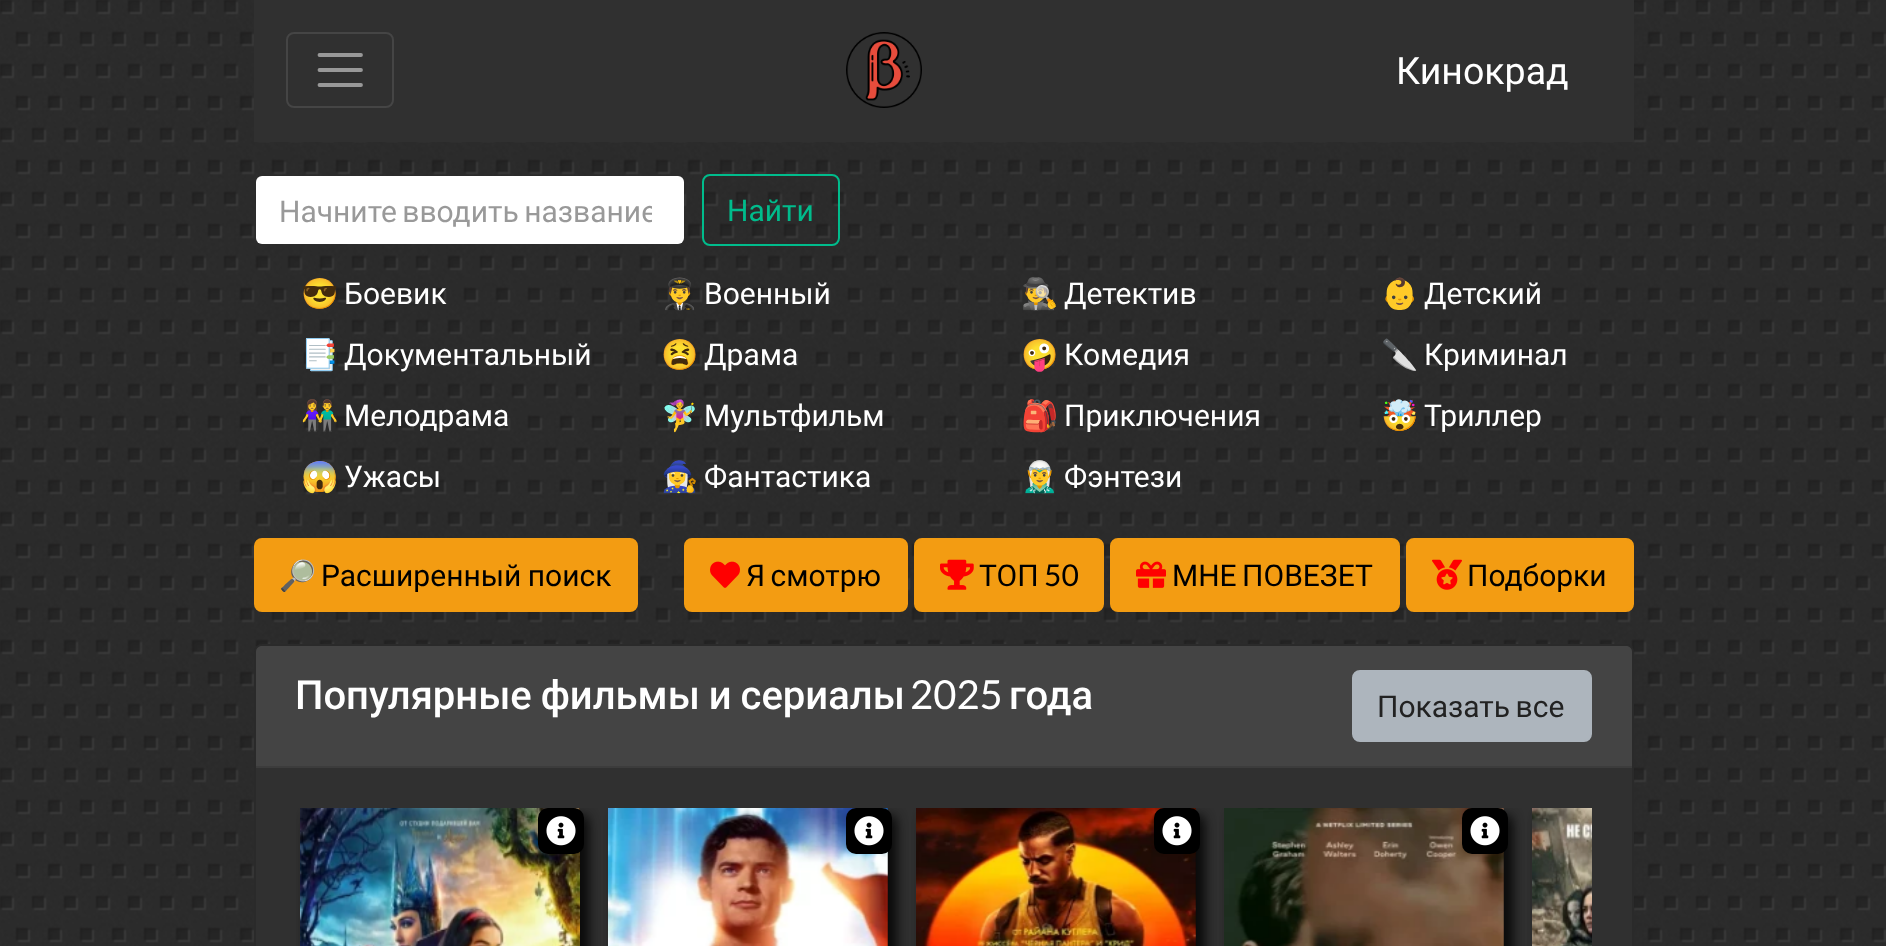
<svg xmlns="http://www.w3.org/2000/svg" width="1886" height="946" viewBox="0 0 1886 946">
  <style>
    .t1 { font: 37.5px Roboto; fill: #fff; }
    .t2 { font: 30px Roboto; fill: #999; }
    .t3 { font: 30px Roboto; fill: #00bc8c; }
    .t4 { font: 30px Noto Color Emoji; fill: #fff; }
    .t5 { font: 30px Roboto; fill: #fff; }
    .t6 { font: 30px Noto Color Emoji; fill: #000; }
    .t7 { font: 30px Roboto; fill: #000; }
    .t8 { font: 30px Lato; fill: #000; }
    .t9 { font: 500 40px Roboto; fill: #fff; }
    .t10 { font: 40px Lato; fill: #fff; }
    .t11 { font: 30px Roboto; fill: #222; }
  </style>
  <defs>
    <clipPath id="clip1"><rect x="280" y="192" width="372" height="38"/></clipPath>
    <clipPath id="clip2"><rect x="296" y="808" width="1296" height="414"/></clipPath>
  </defs>
  <rect width="100%" height="100%" fill="#fff"/>
  <image x="0" y="0" width="1886" height="946" href="images/1.png"/>
  <rect x="254" y="0" width="1380" height="142" fill="#303030"/>
  <rect x="287" y="33" width="106" height="74" rx="7" fill="none" stroke="#454545" stroke-width="2"/>
  <path d="M319.5 55H361M319.5 70H361M319.5 85H361" fill="none" stroke="#989898" stroke-width="3.8" stroke-linecap="round"/>
  <image x="846" y="32" width="76" height="76" href="images/2.png"/>
  <text x="1396" y="84" class="t1">Кинокрад</text>
  <rect x="256" y="176" width="428" height="68" rx="6" fill="#fff"/>
  <g clip-path="url(#clip1)">
    <text x="279" y="222" word-spacing="-2" class="t2">Начните вводить название</text>
  </g>
  <rect x="703" y="175" width="136" height="70" rx="7" fill="none" stroke="#00bc8c" stroke-width="2"/>
  <text x="727" y="221" class="t3">Найти</text>
  <text x="301" y="304" class="t4">😎</text>
  <text x="344" y="304" class="t5">Боевик</text>
  <text x="661" y="304" class="t4">👨‍✈️</text>
  <text x="704" y="304" class="t5">Военный</text>
  <text x="1021" y="304" class="t4">🕵️‍♂️</text>
  <text x="1064" y="304" class="t5">Детектив</text>
  <text x="1381" y="304" class="t4">👶</text>
  <text x="1424" y="304" class="t5">Детский</text>
  <text x="301" y="365" class="t4">📑</text>
  <text x="344" y="365" class="t5">Документальный</text>
  <text x="661" y="365" class="t4">😫</text>
  <text x="704" y="365" class="t5">Драма</text>
  <text x="1021" y="365" class="t4">🤪</text>
  <text x="1064" y="365" class="t5">Комедия</text>
  <text x="1381" y="365" class="t4">🔪</text>
  <text x="1424" y="365" class="t5">Криминал</text>
  <text x="301" y="426" class="t4">👫</text>
  <text x="344" y="426" class="t5">Мелодрама</text>
  <text x="661" y="426" class="t4">🧚‍♀️</text>
  <text x="704" y="426" class="t5">Мультфильм</text>
  <text x="1021" y="426" class="t4">🎒</text>
  <text x="1064" y="426" class="t5">Приключения</text>
  <text x="1381" y="426" class="t4">🤯</text>
  <text x="1424" y="426" class="t5">Триллер</text>
  <text x="301" y="487" class="t4">😱</text>
  <text x="344" y="487" class="t5">Ужасы</text>
  <text x="661" y="487" class="t4">🧙‍♀️</text>
  <text x="704" y="487" class="t5">Фантастика</text>
  <text x="1021" y="487" class="t4">🧝‍♂️</text>
  <text x="1064" y="487" class="t5">Фэнтези</text>
  <rect x="255" y="539" width="382" height="72" rx="7" fill="#f39c12" stroke="#f39c12" stroke-width="2"/>
  <text x="279" y="586" class="t6">🔎</text>
  <text x="321" y="586" word-spacing="-1" class="t7">Расширенный поиск</text>
  <rect x="685" y="539" width="222" height="72" rx="7" fill="#f39c12" stroke="#f39c12" stroke-width="2"/>
  <image x="710" y="561" width="30" height="27" href="images/3.png"/>
  <text x="746" y="586" word-spacing="-2" class="t7">Я смотрю</text>
  <rect x="915" y="539" width="188" height="72" rx="7" fill="#f39c12" stroke="#f39c12" stroke-width="2"/>
  <image x="940" y="559" width="34" height="31" href="images/4.png"/>
  <text x="979" y="586" class="t7">ТОП</text>
  <text x="1044" y="586" class="t8">50</text>
  <rect x="1111" y="539" width="288" height="72" rx="7" fill="#f39c12" stroke="#f39c12" stroke-width="2"/>
  <image x="1136" y="561" width="30" height="27" href="images/5.png"/>
  <text x="1172" y="586" word-spacing="-2" class="t7">МНЕ ПОВЕЗЕТ</text>
  <rect x="1407" y="539" width="226" height="72" rx="7" fill="#f39c12" stroke="#f39c12" stroke-width="2"/>
  <image x="1432" y="559" width="30" height="31" href="images/6.png"/>
  <text x="1467" y="586" class="t7">Подборки</text>
  <rect x="254" y="644" width="1380" height="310" rx="8" fill="#303030"/>
  <rect x="255" y="645" width="1378" height="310" rx="7" fill="none" stroke="#0000001f" stroke-width="2"/>
  <path d="M262 646H1626C1629.5 646 1632 648.5 1632 652V768H256V652C256 648.5 258.5 646 262 646Z" fill="#444"/>
  <rect x="256" y="766" width="1376" height="2" fill="#3c3c3c"/>
  <text x="295" y="709" word-spacing="-1" class="t9">Популярные фильмы и сериалы</text>
  <text x="910" y="709" class="t10">2025</text>
  <text x="1009" y="709" class="t9">года</text>
  <rect x="1353" y="671" width="238" height="70" rx="7" fill="#adb5bd" stroke="#adb5bd" stroke-width="2"/>
  <text x="1377" y="717" word-spacing="-2" class="t11">Показать все</text>
  <g clip-path="url(#clip2)">
    <rect x="308" y="816" width="280" height="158" rx="10" fill="#0000008a" filter="blur(6px)"/>
    <rect x="308" y="816" width="280" height="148" fill="#0000008a" filter="blur(6px)"/>
  </g>
  <image x="300" y="808" width="280" height="138" href="images/7.png"/>
  <rect x="538" y="808" width="46" height="46" rx="10" fill="#000"/>
  <image x="546" y="816" width="30" height="30" href="images/8.png"/>
  <g clip-path="url(#clip2)">
    <rect x="616" y="816" width="280" height="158" rx="10" fill="#0000008a" filter="blur(6px)"/>
    <rect x="616" y="816" width="280" height="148" fill="#0000008a" filter="blur(6px)"/>
  </g>
  <image x="608" y="808" width="280" height="138" href="images/9.png"/>
  <rect x="846" y="808" width="46" height="46" rx="10" fill="#000"/>
  <image x="854" y="816" width="30" height="30" href="images/8.png"/>
  <g clip-path="url(#clip2)">
    <rect x="924" y="816" width="280" height="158" rx="10" fill="#0000008a" filter="blur(6px)"/>
    <rect x="924" y="816" width="280" height="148" fill="#0000008a" filter="blur(6px)"/>
  </g>
  <image x="916" y="808" width="280" height="138" href="images/10.png"/>
  <rect x="1154" y="808" width="46" height="46" rx="10" fill="#000"/>
  <image x="1162" y="816" width="30" height="30" href="images/8.png"/>
  <g clip-path="url(#clip2)">
    <rect x="1232" y="816" width="280" height="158" rx="10" fill="#0000008a" filter="blur(6px)"/>
    <rect x="1232" y="816" width="280" height="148" fill="#0000008a" filter="blur(6px)"/>
  </g>
  <image x="1224" y="808" width="280" height="138" href="images/11.png"/>
  <rect x="1462" y="808" width="46" height="46" rx="10" fill="#000"/>
  <image x="1470" y="816" width="30" height="30" href="images/8.png"/>
  <g clip-path="url(#clip2)">
    <rect x="1540" y="816" width="280" height="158" rx="10" fill="#0000008a" filter="blur(6px)"/>
    <rect x="1540" y="816" width="280" height="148" fill="#0000008a" filter="blur(6px)"/>
  </g>
  <image x="1532" y="808" width="60" height="138" href="images/12.png"/>
</svg>
